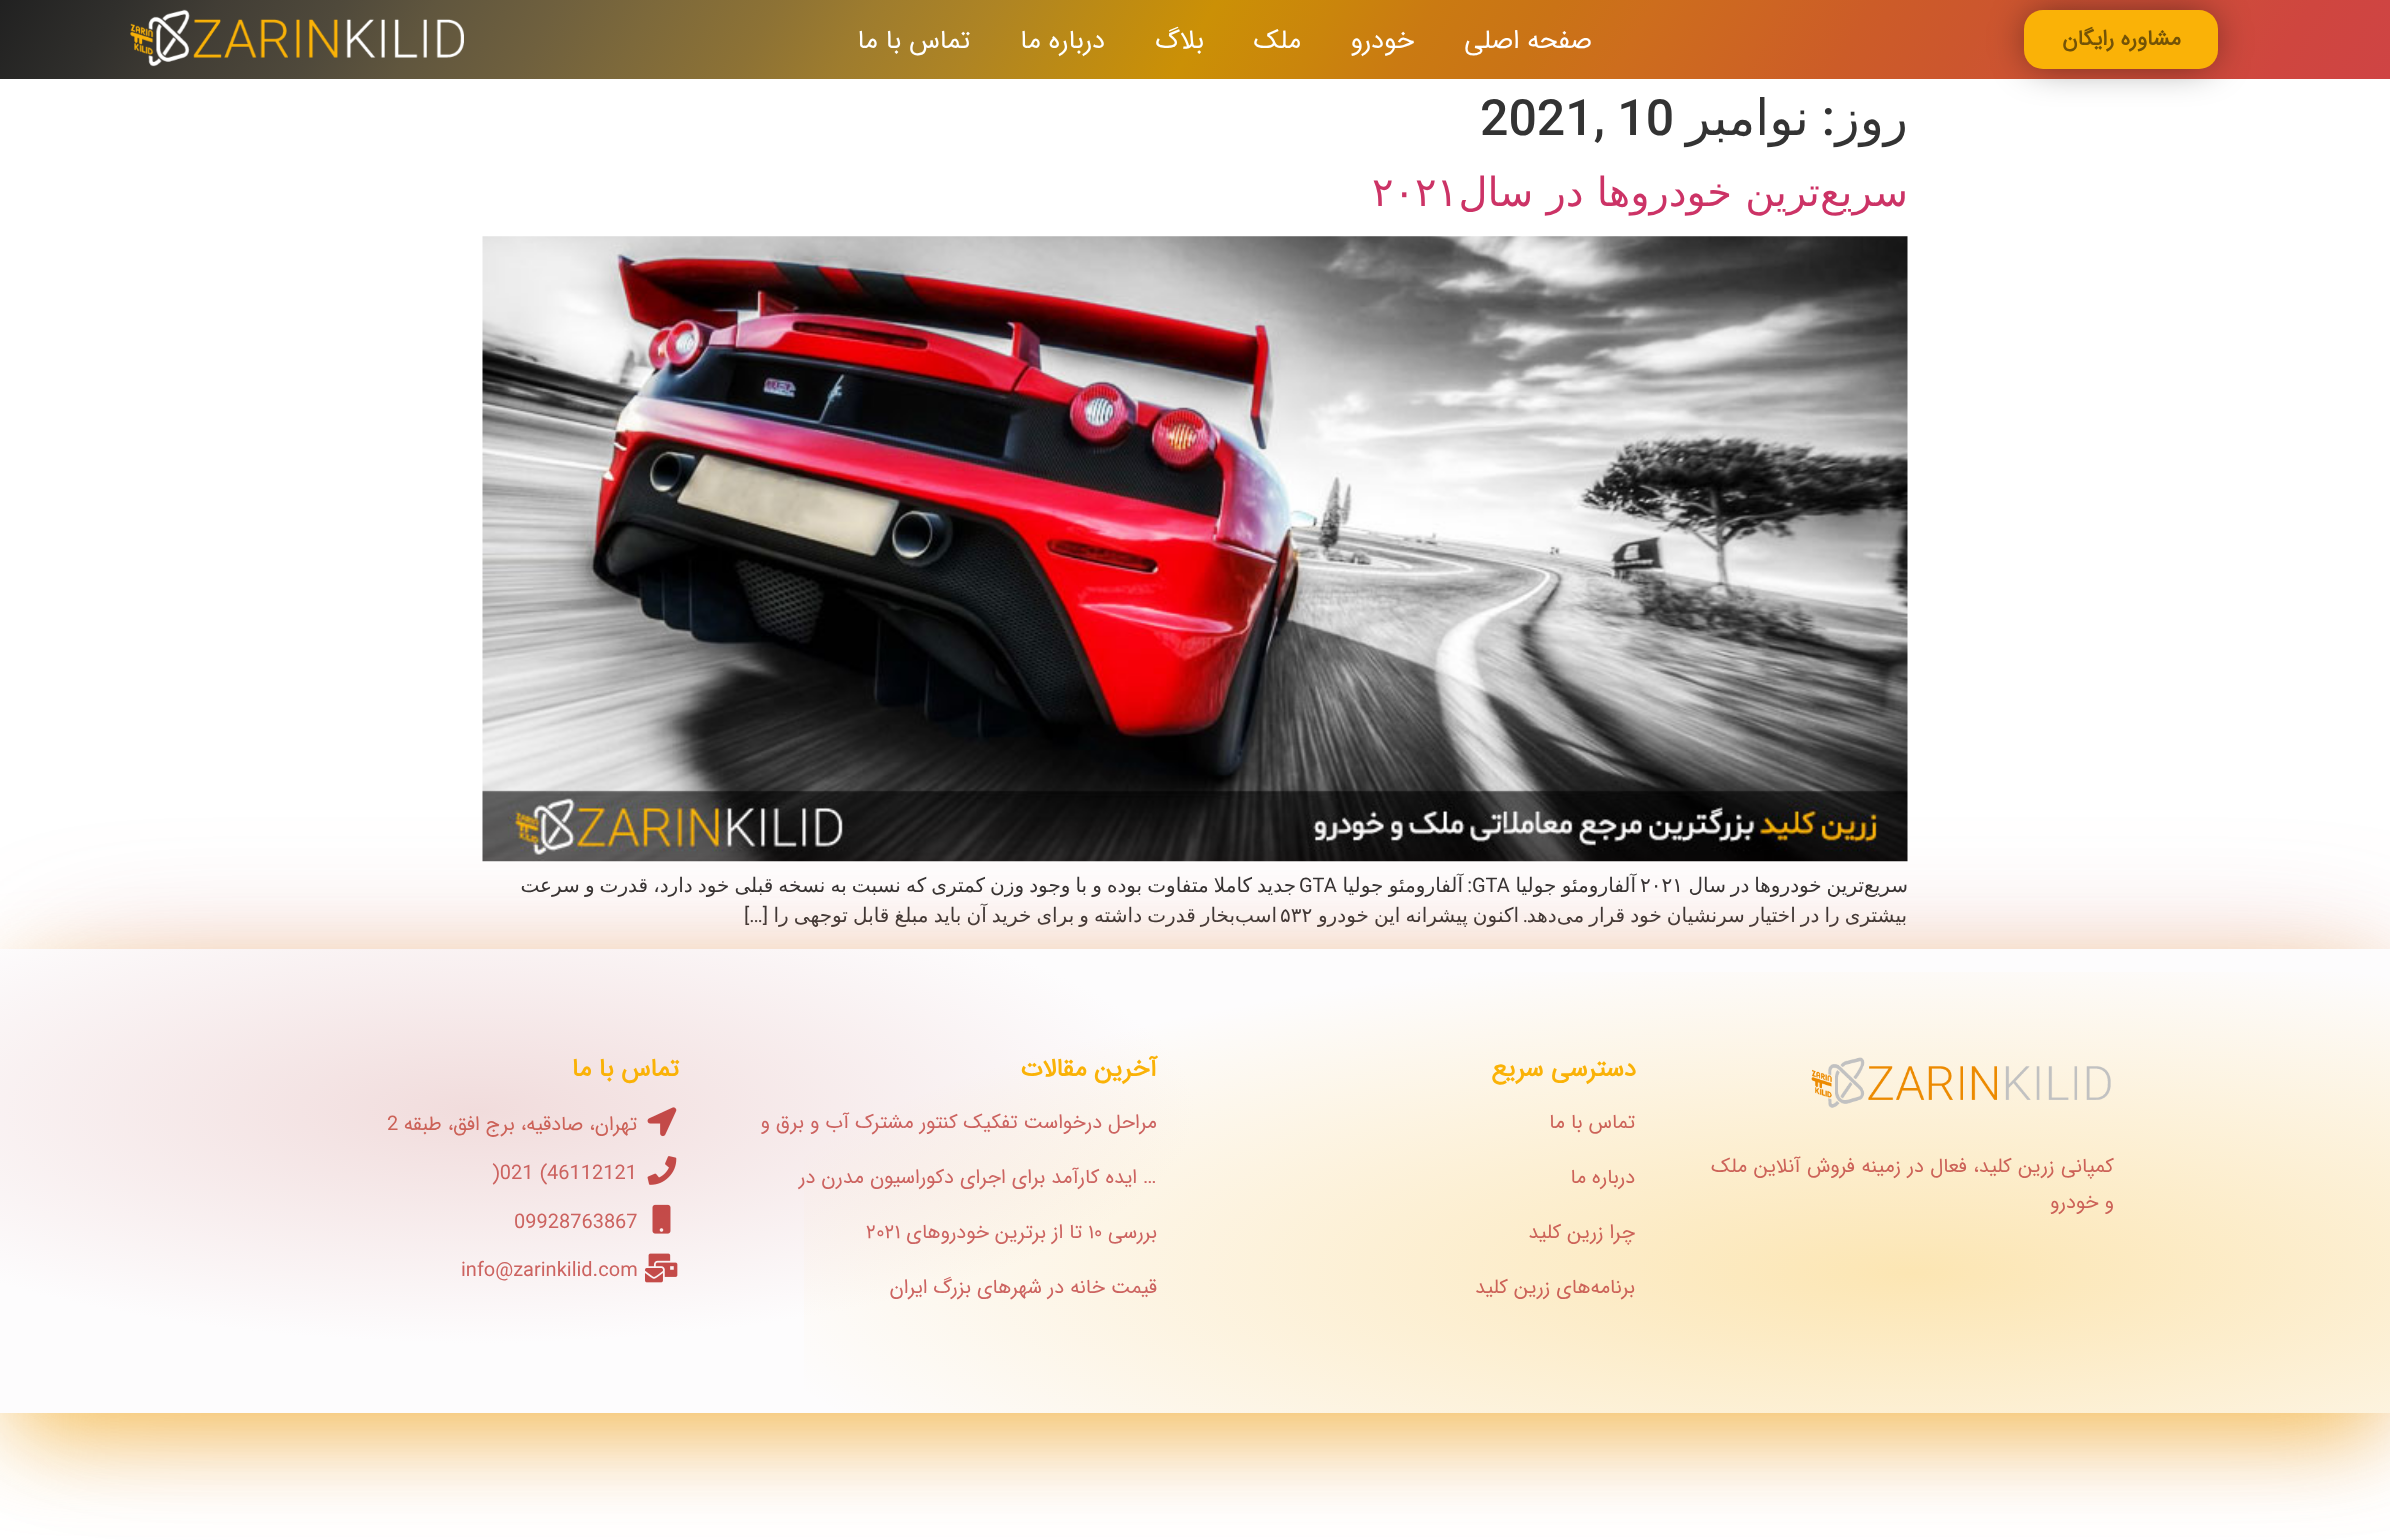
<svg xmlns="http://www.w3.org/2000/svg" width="2390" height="1540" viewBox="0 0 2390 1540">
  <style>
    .t1 { font: bold 21.5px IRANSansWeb; direction: rtl; fill: #735307; }
    .t2 { font: 26.25px IRANSansWeb; direction: rtl; fill: #fff; }
    .t3 { font: 50px DejaVu Sans; direction: rtl; fill: #333; }
    .t4 { font: 500 50px Roboto; direction: rtl; fill: #333; }
    .t5 { font: 500 50px Roboto; fill: #333; }
    .t6 { font: 40px DejaVu Sans; direction: rtl; fill: #c36; }
    .t7 { font: 40px DejaVu Sans; fill: #c36; }
    .t8 { font: 20px DejaVu Sans; direction: rtl; fill: #333; }
    .t9 { font: 20px DejaVu Sans; fill: #333; }
    .t10 { font: 20px Roboto; fill: #333; }
    .t11 { font: 20px Roboto; direction: rtl; fill: #333; }
    .t12 { font: 20px IRANSansWeb; direction: rtl; fill: #cc6258; }
    .t13 { font: bold 25px IRANSansWeb; direction: rtl; fill: #fab207; }
    .t14 { font: 20px IRANSansWeb; direction: rtl; fill: #cc6360; }
    .t15 { font: 20px IRANSansWeb; fill: #cc6360; }
    .t16 { font: 20px IRANSansWeb; fill: #cc6258; }
  </style>
  <defs>
    <linearGradient id="g1" gradientUnits="userSpaceOnUse" x1="282" y1="-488" x2="2108" y2="567"><stop offset="0" stop-color="#212121"/><stop offset="0.05" stop-color="#302f2c"/><stop offset="0.09" stop-color="#413d35"/><stop offset="0.14" stop-color="#4f493b"/><stop offset="0.18" stop-color="#60563e"/><stop offset="0.23" stop-color="#6f603e"/><stop offset="0.27" stop-color="#7d693b"/><stop offset="0.32" stop-color="#8d7235"/><stop offset="0.36" stop-color="#9e7c2e"/><stop offset="0.41" stop-color="#ae8424"/><stop offset="0.45" stop-color="#bb8a16"/><stop offset="0.5" stop-color="#cb9006"/><stop offset="0.55" stop-color="#ca850c"/><stop offset="0.59" stop-color="#ca7a12"/><stop offset="0.64" stop-color="#ca7316"/><stop offset="0.68" stop-color="#cd6d1d"/><stop offset="0.73" stop-color="#cd6423"/><stop offset="0.77" stop-color="#cc5c28"/><stop offset="0.82" stop-color="#cc562e"/><stop offset="0.86" stop-color="#ce5236"/><stop offset="0.91" stop-color="#ce4c3b"/><stop offset="0.95" stop-color="#cf463f"/><stop offset="1" stop-color="#cf4444"/></linearGradient>
    <radialGradient id="g2" gradientUnits="userSpaceOnUse" cx="0" cy="0" r="1" gradientTransform="matrix(717 0 0 232 478 1111)"><stop offset="0" stop-color="#f1dcdc"/><stop offset="1" stop-color="#fdfcfd"/></radialGradient>
    <radialGradient id="g3" gradientUnits="userSpaceOnUse" cx="0" cy="0" r="1" gradientTransform="matrix(1195 0 0 325 1912 1273)"><stop offset="0" stop-color="#fab207" stop-opacity="0.3"/><stop offset="1" stop-color="#fab207" stop-opacity="0"/></radialGradient>
  </defs>
  <rect width="100%" height="100%" fill="#fff"/>
  <rect x="0" y="0" width="2390" height="79" fill="url(#g1)"/>
  <rect x="2030" y="16" width="181" height="47" rx="13" fill="#00000091" filter="blur(19px)"/>
  <rect x="2024" y="10" width="194" height="59" rx="19" fill="#fab207"/>
  <text x="2181" y="45" class="t1">مشاوره رایگان</text>
  <text x="1592" y="48" class="t2">صفحه اصلی</text>
  <text x="1414" y="48" class="t2">خودرو</text>
  <text x="1301" y="48" class="t2">ملک</text>
  <text x="1204" y="48" class="t2">بلاگ</text>
  <text x="1105" y="48" class="t2">درباره ما</text>
  <text x="970" y="48" class="t2">تماس با ما</text>
  <image x="130" y="9" width="334" height="58" href="images/1.png"/>
  <text x="1908" y="135" class="t3">روز</text>
  <text x="1835" y="135" class="t4">:</text>
  <text x="1809" y="135" class="t3">نوامبر</text>
  <text x="1480" y="135" class="t5">2021, 10</text>
  <text x="1908" y="206" word-spacing="0.5" class="t6">سریع‌ترین خودرو‌ها در سال</text>
  <text x="1372" y="206" class="t7">۲۰۲۱</text>
  <image x="482" y="236" width="1426" height="626" href="images/2.png"/>
  <text x="1908" y="892" word-spacing="-1.5" class="t8">سریع‌ترین خودرو‌ها در سال</text>
  <text x="1640" y="892" class="t9">۲۰۲۱</text>
  <text x="1636" y="892" word-spacing="-1" class="t8">آلفارومئو جولیا</text>
  <text x="1472" y="892" class="t10">GTA</text>
  <text x="1472" y="892" class="t11">:</text>
  <text x="1463" y="892" word-spacing="-1" class="t8">آلفارومئو جولیا</text>
  <text x="1296" y="892" word-spacing="-1.3" class="t8">جدید کاملا متفاوت بوده و با وجود وزن کمتری که نسبت به نسخه قبلی خود دارد، قدرت و سرعت</text>
  <text x="1299" y="892" class="t10">GTA</text>
  <text x="1907" y="922" word-spacing="-1.25" class="t8">بیشتری را در اختیار سرنشیان خود قرار می‌دهد</text>
  <text x="1528" y="922" class="t11">.</text>
  <text x="1519" y="922" word-spacing="-1.25" class="t8">اکنون پیشرانه این خودرو</text>
  <text x="1277" y="922" word-spacing="-1.25" class="t8">اسب‌بخار قدرت داشته و برای خرید آن باید مبلغ قابل توجهی را</text>
  <text x="1280" y="922" class="t9">۵۳۲</text>
  <text x="768" y="922" class="t11">[…]</text>
  <rect x="63" y="986" width="2315" height="389" fill="#c44b496b" filter="blur(75px)"/>
  <rect x="13" y="993" width="2365" height="438" fill="#f6c156" filter="blur(44px)"/>
  <rect x="0" y="949" width="2390" height="464" fill="url(#g2)"/>
  <rect x="804" y="972" width="1586" height="441" fill="url(#g3)"/>
  <image x="1811" y="1057" width="300" height="51" href="images/3.png"/>
  <text x="2114" y="1172" word-spacing="0.5" class="t12">کمپانی زرین کلید، فعال در زمینه فروش آنلاین ملک</text>
  <text x="2114" y="1208" class="t12">و خودرو</text>
  <text x="1636" y="1076" class="t13">دسترسی سریع</text>
  <text x="1635" y="1128" class="t12">تماس با ما</text>
  <text x="1635" y="1183" class="t12">درباره ما</text>
  <text x="1635" y="1238" class="t12">چرا زرین کلید</text>
  <text x="1635" y="1293" class="t12">برنامه‌های زرین کلید</text>
  <text x="1157" y="1076" class="t13">آخرین مقالات</text>
  <text x="1157" y="1128" class="t14">مراحل درخواست تفکیک کنتور مشترک آب و برق و</text>
  <text x="1143" y="1183" class="t15">…</text>
  <text x="1137" y="1183" class="t14">ایده‌ کارآمد برای اجرای دکوراسیون مدرن در</text>
  <text x="1157" y="1238" class="t14">بررسی</text>
  <text x="1088" y="1238" class="t15">۱۰</text>
  <text x="1082" y="1238" class="t14">تا از برترین خودروهای</text>
  <text x="866" y="1238" class="t15">۲۰۲۱</text>
  <text x="1157" y="1293" class="t14">قیمت خانه در شهرهای بزرگ ایران</text>
  <text x="679" y="1076" class="t13">تماس با ما</text>
  <image x="647" y="1107" width="30" height="30" href="images/4.png"/>
  <text x="637" y="1130" class="t12">تهران، صادقیه، برج افق، طبقه</text>
  <text x="387" y="1130" class="t16">2</text>
  <image x="647" y="1156" width="30" height="29" href="images/5.png"/>
  <text x="547" y="1179" class="t15">46112121</text>
  <text x="540" y="1179" class="t15">(</text>
  <text x="492" y="1179" class="t15">)021</text>
  <image x="652" y="1204" width="19" height="30" href="images/6.png"/>
  <text x="514" y="1228" class="t15">09928763867</text>
  <image x="645" y="1253" width="33" height="30" href="images/7.png"/>
  <text x="461" y="1276" class="t15">info@zarinkilid.com</text>
</svg>
